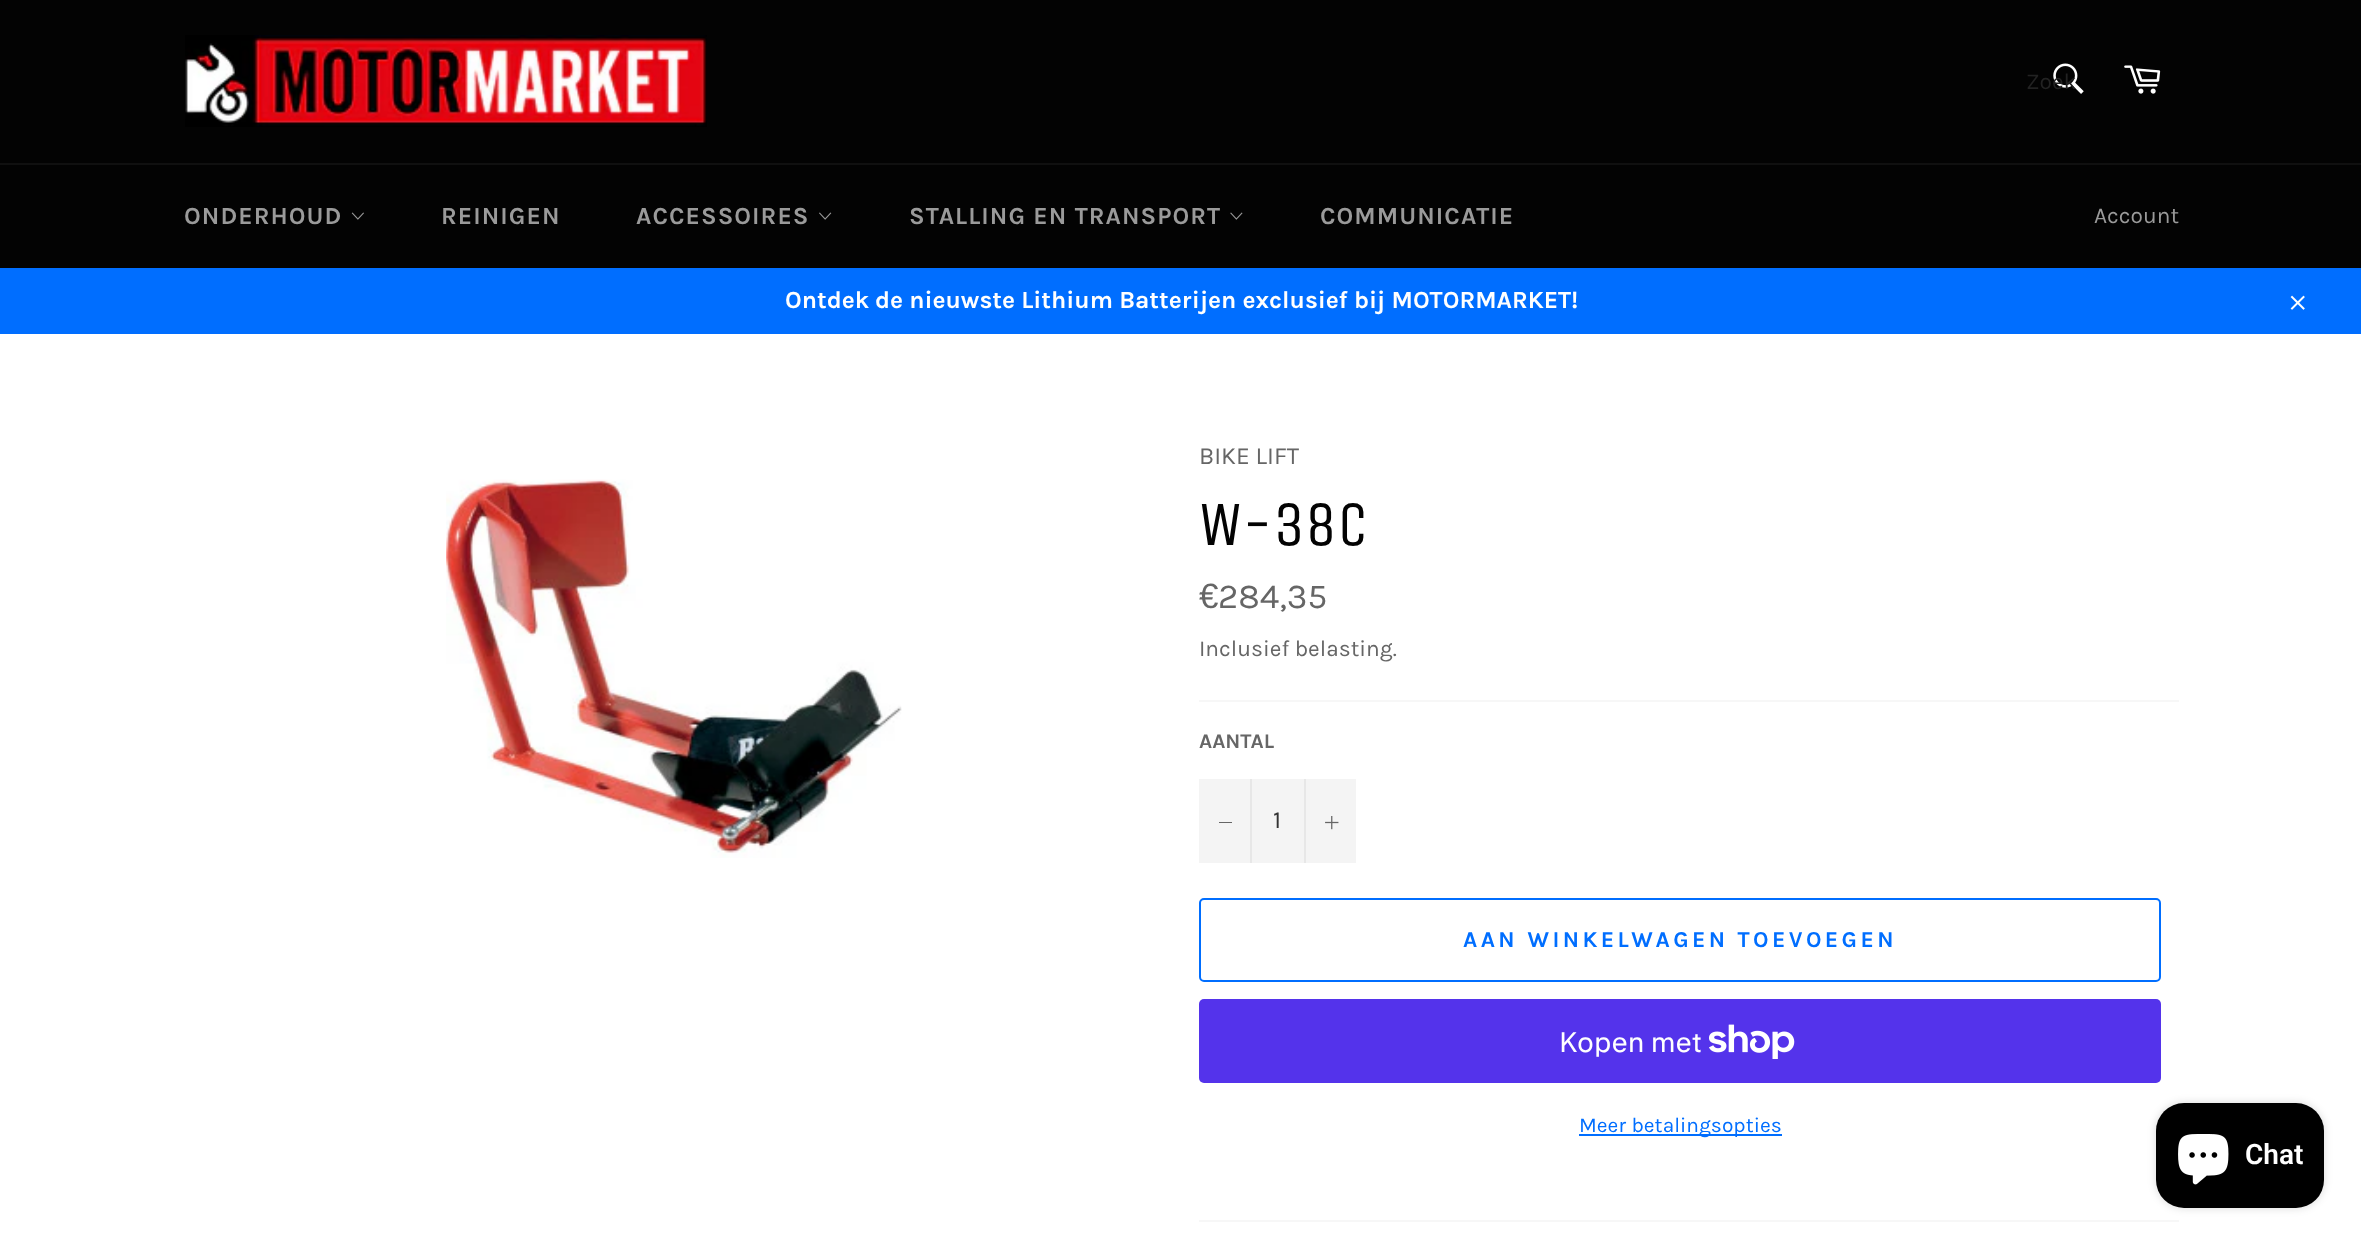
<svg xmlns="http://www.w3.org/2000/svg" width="2361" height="1244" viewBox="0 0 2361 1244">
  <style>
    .t1 { font: 22.75px Karla; fill: #222; }
    .t2 { font: bold 24.5px Karla; letter-spacing: 1.05px; fill: #9a9a9a; }
    .t3 { font: 22.75px Karla; fill: #9a9a9a; }
    .t4 { font: bold 24.5px Karla; fill: #fff; }
    .t5 { font: 24.5px Karla; fill: #666; }
    .t6 { font: 63px Unica One; fill: #030303; }
    .t7 { font: 35px Liberation Sans; fill: #666; }
    .t8 { font: 35px Karla; fill: #666; }
    .t9 { font: 22.75px Karla; fill: #666; }
    .t10 { font: bold 21px Karla; fill: #666; }
    .t11 { font: 24.5px Karla; fill: #333; }
    .t12 { font: bold 22.75px Karla; letter-spacing: 3.4px; fill: #006eff; }
    .t13 { font: 28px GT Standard; fill: #fff; }
    .t14 { font: 21px Karla; fill: #006eff; }
    .t15 { font: 600 28px Roboto; fill: #fff; }
  </style>
  <rect width="100%" height="100%" fill="#030303"/>
  <image x="185" y="35" width="522" height="92" href="images/1.png"/>
  <image x="2053" y="63" width="31" height="31" href="images/2.png"/>
  <text x="2026" y="89" class="t1">Zoek</text>
  <image x="2124" y="65" width="37" height="29" href="images/3.png"/>
  <rect x="0" y="163" width="2361" height="2" fill="#101010"/>
  <text x="184" y="224" class="t2">ONDERHOUD</text>
  <image x="351" y="212" width="13" height="8" href="images/4.png"/>
  <text x="441" y="224" class="t2">REINIGEN</text>
  <text x="636" y="224" class="t2">ACCESSOIRES</text>
  <image x="819" y="212" width="13" height="8" href="images/5.png"/>
  <text x="909" y="224" class="t2">STALLING EN TRANSPORT</text>
  <image x="1230" y="212" width="13" height="8" href="images/6.png"/>
  <text x="1320" y="224" class="t2">COMMUNICATIE</text>
  <text x="2094" y="223" class="t3">Account</text>
  <rect x="0" y="268" width="2361" height="66" fill="#006eff"/>
  <text x="785" y="308" class="t4">Ontdek de nieuwste Lithium Batterijen exclusief bij MOTORMARKET!</text>
  <image x="2290" y="295" width="15" height="15" href="images/7.png"/>
  <rect x="0" y="334" width="2361" height="910" fill="#fff"/>
  <image x="446" y="479" width="456" height="379" href="images/8.png"/>
  <text x="1199" y="464" class="t5">BIKE LIFT</text>
  <text x="1199" y="545" class="t6">W-38C</text>
  <text x="1199" y="608" class="t7">€</text>
  <text x="1218" y="608" class="t8">284,35</text>
  <text x="1199" y="656" class="t9">Inclusief belasting.</text>
  <rect x="1199" y="700" width="980" height="2" fill="#f7f7f7"/>
  <text x="1199" y="748" class="t10">AANTAL</text>
  <rect x="1199" y="779" width="157" height="84" fill="#f4f4f4"/>
  <rect x="1250" y="779" width="2" height="84" fill="#e7e7e7"/>
  <rect x="1219" y="822" width="13" height="1" fill="#666"/>
  <text x="1273" y="828" class="t11">1</text>
  <rect x="1304" y="779" width="2" height="84" fill="#e7e7e7"/>
  <image x="1325" y="816" width="14" height="14" href="images/9.png"/>
  <rect x="1200" y="899" width="960" height="82" rx="4" fill="none" stroke="#006eff" stroke-width="2"/>
  <text x="1463" y="947" class="t12">AAN WINKELWAGEN TOEVOEGEN</text>
  <rect x="1199" y="999" width="962" height="84" rx="5" fill="#5433eb"/>
  <text x="1559" y="1052" class="t13">Kopen met</text>
  <image x="1709" y="1024" width="86" height="35" href="images/10.png"/>
  <rect x="1579" y="1134" width="203" height="2" fill="#006eff"/>
  <text x="1579" y="1132" class="t14">Meer betalingsopties</text>
  <rect x="1199" y="1220" width="980" height="2" fill="#f7f7f7"/>
  <rect x="2156" y="1103" width="168" height="105" rx="28" fill="#00000026" filter="blur(4.5px)"/>
  <rect x="2156" y="1103" width="168" height="105" rx="28" fill="#000"/>
  <image x="2178" y="1134" width="51" height="51" href="images/11.png"/>
  <text x="2245" y="1164" class="t15">Chat</text>
</svg>
